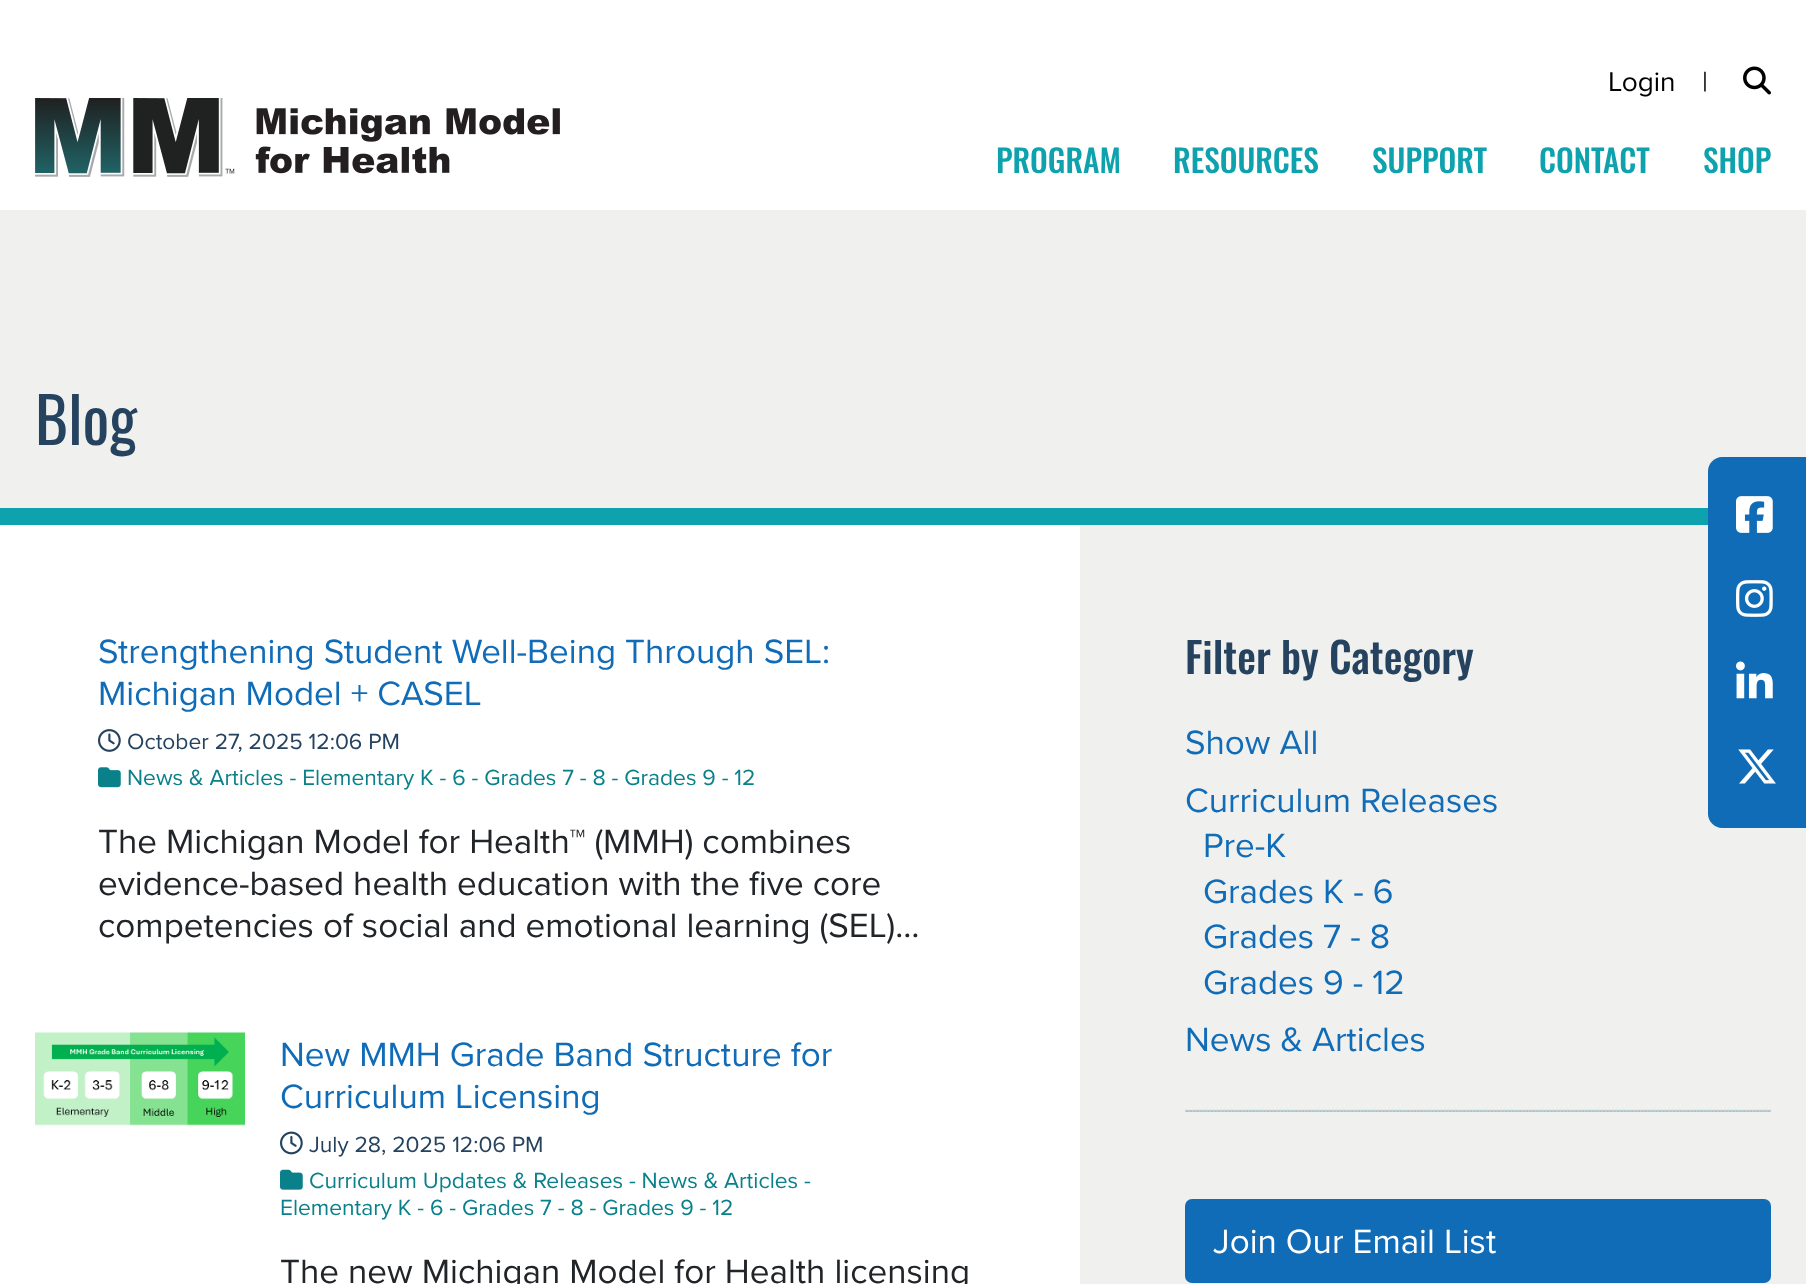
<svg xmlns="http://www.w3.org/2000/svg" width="1806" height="1284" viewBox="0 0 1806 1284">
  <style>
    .t1 { font: 28px Proxima Nova; fill: #000; }
    .t2 { font: 500 31.5px Oswald; fill: #0da2ad; }
    .t3 { font: 63px Oswald; fill: #25425e; }
    .t4 { font: 35px Proxima Nova; fill: #116cb8; }
    .t5 { font: 22.75px Proxima Nova; fill: #25425e; }
    .t6 { font: 22.75px Proxima Nova; fill: #0a818a; }
    .t7 { font: 35px Proxima Nova; fill: #212529; }
    .t8 { font: 500 42px Oswald; fill: #25425e; }
    .t9 { font: 35px Proxima Nova; fill: #fff; }
  </style>
  <rect width="100%" height="100%" fill="#fff"/>
  <text x="1608" y="91" class="t1">Login</text>
  <text x="1702" y="91" class="t1">|</text>
  <image x="1743" y="66" width="28" height="29" href="images/1.png"/>
  <image x="35" y="98" width="525" height="79" href="images/2.png"/>
  <text x="996" y="173" class="t2">PROGRAM</text>
  <text x="1173" y="173" class="t2">RESOURCES</text>
  <text x="1372" y="173" class="t2">SUPPORT</text>
  <text x="1539" y="173" class="t2">CONTACT</text>
  <text x="1703" y="173" class="t2">SHOP</text>
  <rect x="0" y="210" width="1806" height="298" fill="#f0f0ef"/>
  <rect x="1080" y="525" width="726" height="759" fill="#f0f0ef"/>
  <path d="M1722 457H1806V828H1722C1714.5 828 1708 821.5 1708 814V471C1708 463.5 1714.5 457 1722 457Z" fill="#116cb8"/>
  <image x="1736" y="496" width="37" height="37" href="images/3.png"/>
  <image x="1736" y="580" width="37" height="37" href="images/4.png"/>
  <image x="1736" y="661" width="37" height="38" href="images/5.png"/>
  <image x="1738" y="749" width="38" height="35" href="images/6.png"/>
  <rect x="0" y="508" width="1708" height="17" fill="#0da2ad"/>
  <text x="35" y="445" class="t3">Blog</text>
  <text x="98" y="663" class="t4">Strengthening Student Well-Being Through SEL:</text>
  <text x="98" y="705" class="t4">Michigan Model + CASEL</text>
  <image x="98" y="729" width="23" height="23" href="images/7.png"/>
  <text x="127" y="749" class="t5">October 27, 2025 12:06 PM</text>
  <image x="98" y="767" width="23" height="21" href="images/8.png"/>
  <text x="127" y="785" class="t6">News &amp; Articles - Elementary K - 6 - Grades 7 - 8 - Grades 9 - 12</text>
  <text x="98" y="853" class="t7">The Michigan Model for Health™ (MMH) combines</text>
  <text x="98" y="895" class="t7">evidence-based health education with the five core</text>
  <text x="98" y="937" class="t7">competencies of social and emotional learning (SEL)…</text>
  <image x="35" y="1032" width="210" height="94" href="images/9.png"/>
  <text x="280" y="1066" class="t4">New MMH Grade Band Structure for</text>
  <text x="280" y="1108" class="t4">Curriculum Licensing</text>
  <image x="280" y="1131" width="23" height="24" href="images/10.png"/>
  <text x="309" y="1152" class="t5">July 28, 2025 12:06 PM</text>
  <image x="280" y="1169" width="23" height="21" href="images/11.png"/>
  <text x="309" y="1188" class="t6">Curriculum Updates &amp; Releases - News &amp; Articles -</text>
  <text x="280" y="1215" class="t6">Elementary K - 6 - Grades 7 - 8 - Grades 9 - 12</text>
  <text x="280" y="1283" class="t7">The new Michigan Model for Health licensing</text>
  <text x="1185" y="674" class="t8">Filter by Category</text>
  <text x="1185" y="754" class="t4">Show All</text>
  <text x="1185" y="812" class="t4">Curriculum Releases</text>
  <text x="1203" y="857" class="t4">Pre-K</text>
  <text x="1203" y="903" class="t4">Grades K - 6</text>
  <text x="1203" y="948" class="t4">Grades 7 - 8</text>
  <text x="1203" y="994" class="t4">Grades 9 - 12</text>
  <text x="1185" y="1051" class="t4">News &amp; Articles</text>
  <rect x="1185" y="1110" width="586" height="2" fill="#bcbdbe"/>
  <path d="M1185 1110.5H1771" fill="none" stroke="#b7dddf" stroke-width="1.8" stroke-dasharray="1.75 1.75"/>
  <rect x="1185" y="1199" width="586" height="84" rx="7" fill="#116cb8"/>
  <text x="1213" y="1253" class="t9">Join Our Email List</text>
</svg>
